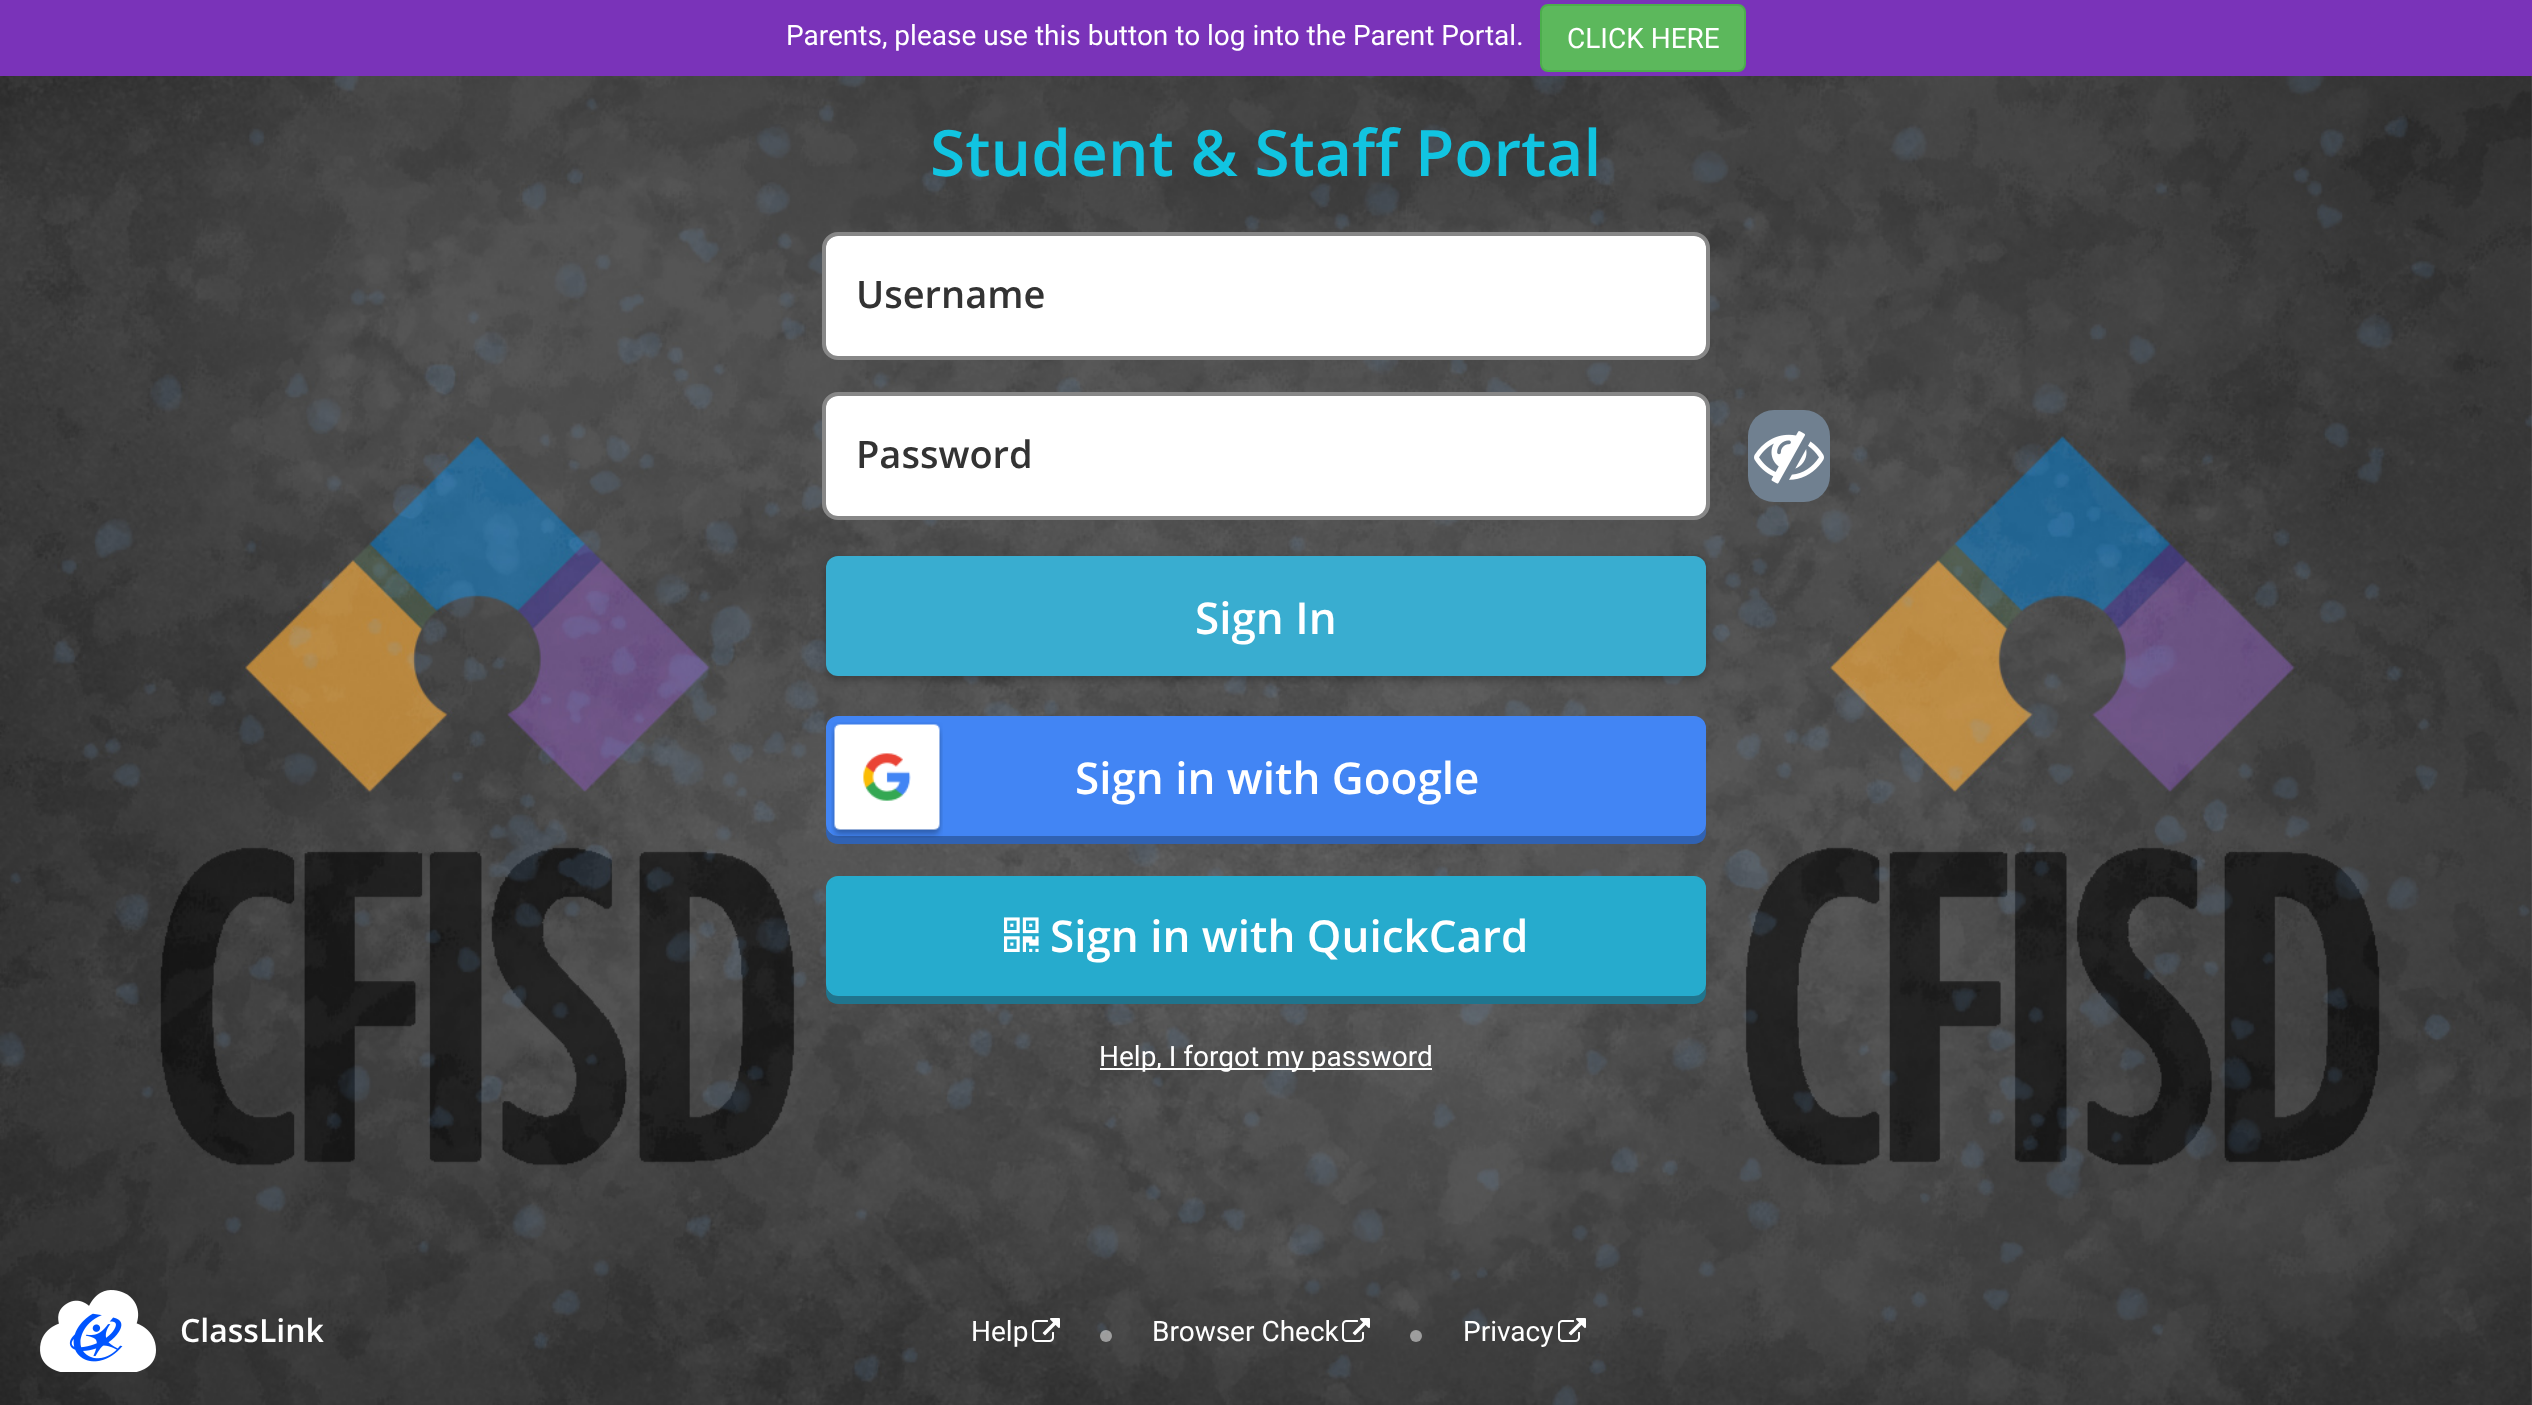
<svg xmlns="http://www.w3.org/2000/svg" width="2532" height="1405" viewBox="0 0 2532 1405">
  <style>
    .t1 { font: 28px Roboto; fill: #fff; }
    .t2 { font: 600 64px Open Sans; fill: #11c4e1; }
    .t3 { font: 600 38px Open Sans; fill: #333; }
    .t4 { font: 600 44px Open Sans; fill: #fff; }
    .t5 { font: 600 32px Open Sans; fill: #fff; }
  </style>
  <rect width="100%" height="100%" fill="#fff"/>
  <image x="0" y="76" width="2532" height="1329" href="images/1.png"/>
  <rect x="0" y="0" width="2532" height="76" fill="#7a33b9"/>
  <text x="786" y="45" class="t1">Parents, please use this button to log into the Parent Portal.</text>
  <rect x="1541" y="5" width="204" height="66" rx="7" fill="#5cb85c" stroke="#4cae4c" stroke-width="2"/>
  <text x="1567" y="48" class="t1">CLICK HERE</text>
  <text x="930" y="176" class="t2">Student &amp; Staff Portal</text>
  <rect x="824" y="234" width="884" height="124" rx="14" fill="none" stroke="#878787" stroke-width="4"/>
  <rect x="826" y="236" width="880" height="120" rx="12" fill="#fff"/>
  <text x="856" y="308" class="t3">Username</text>
  <rect x="824" y="394" width="884" height="124" rx="14" fill="none" stroke="#878787" stroke-width="4"/>
  <rect x="826" y="396" width="880" height="120" rx="12" fill="#fff"/>
  <text x="856" y="468" class="t3">Password</text>
  <rect x="1748" y="410" width="82" height="92" rx="26" fill="#708090"/>
  <image x="1754" y="431" width="70" height="53" href="images/2.png"/>
  <rect x="826" y="560" width="880" height="120" rx="12" fill="#00000040" filter="blur(4px)"/>
  <rect x="826" y="556" width="880" height="120" rx="12" fill="#39add0"/>
  <text x="1195" y="634" class="t4">Sign In</text>
  <path d="M826 824V832C826 839 831 844 838 844H1694C1701 844 1706 839 1706 832V824C1706 831 1701 836 1694 836H838C831 836 826 831 826 824Z" fill="#3062b3"/>
  <rect x="827" y="717" width="878" height="118" rx="11" fill="#4285f4" stroke="#4285f4" stroke-width="2"/>
  <image x="831" y="722" width="112" height="116" href="images/3.png"/>
  <text x="1075" y="794" class="t4">Sign in with Google</text>
  <path d="M826 984V992C826 999 831 1004 838 1004H1694C1701 1004 1706 999 1706 992V984C1706 991 1701 996 1694 996H838C831 996 826 991 826 984Z" fill="#20748d"/>
  <rect x="827" y="877" width="878" height="118" rx="11" fill="#26abcd" stroke="#26abcd" stroke-width="2"/>
  <image x="1004" y="917" width="35" height="35" href="images/4.png"/>
  <text x="1050" y="952" class="t4">Sign in with QuickCard</text>
  <rect x="1100" y="1068" width="332" height="2" fill="#fff"/>
  <text x="1099" y="1066" class="t1">Help, I forgot my password</text>
  <image x="40" y="1290" width="116" height="82" href="images/5.png"/>
  <text x="180" y="1342" class="t5">ClassLink</text>
  <text x="971" y="1341" class="t1">Help</text>
  <image x="1032" y="1318" width="28" height="24" href="images/6.png"/>
  <circle cx="1106" cy="1336" r="6" fill="#f9f9f980"/>
  <text x="1152" y="1341" class="t1">Browser Check</text>
  <image x="1342" y="1318" width="28" height="24" href="images/7.png"/>
  <circle cx="1416" cy="1336" r="6" fill="#f9f9f980"/>
  <text x="1463" y="1341" class="t1">Privacy</text>
  <image x="1558" y="1318" width="28" height="24" href="images/8.png"/>
</svg>
